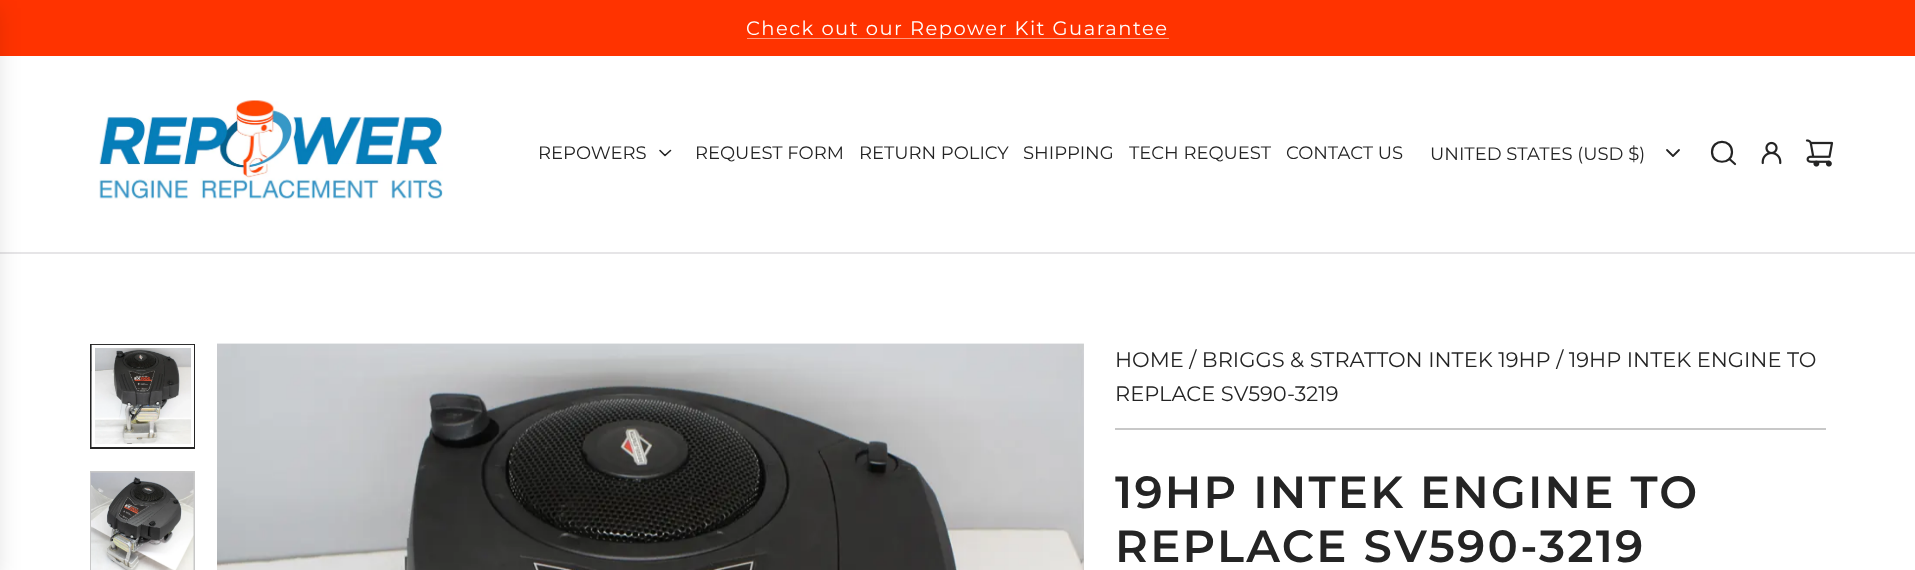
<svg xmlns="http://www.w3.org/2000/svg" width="1915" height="570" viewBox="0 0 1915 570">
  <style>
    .t1 { font: 19.5px Montserrat; letter-spacing: 1.5px; fill: #fff; }
    .t2 { font: 18px Montserrat; fill: #242424; }
    .t3 { font: 21px Montserrat; fill: #242424; }
    .t4 { font: 600 45px Montserrat; letter-spacing: 2.25px; fill: #242424; }
  </style>
  <rect width="100%" height="100%" fill="#fff"/>
  <rect x="0" y="0" width="1915" height="56" fill="#f30"/>
  <rect x="747" y="38" width="422" height="1" fill="#ff9980"/>
  <text x="746" y="35" class="t1">Check out our Repower Kit Guarantee</text>
  <rect x="0" y="252" width="1915" height="2" fill="#e6e5e7"/>
  <rect x="-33" y="8" width="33" height="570" fill="#0000001a" filter="blur(11px)"/>
  <image x="99" y="100" width="344" height="99" href="images/1.png"/>
  <text x="538" y="159" class="t2">REPOWERS</text>
  <path d="M660 150.5L665 155.5L670.5 150.5" fill="none" stroke="#242424" stroke-width="1.6" stroke-linecap="round" stroke-linejoin="round"/>
  <text x="695" y="159" class="t2">REQUEST FORM</text>
  <text x="859" y="159" class="t2">RETURN POLICY</text>
  <text x="1023" y="159" class="t2">SHIPPING</text>
  <text x="1129" y="159" class="t2">TECH REQUEST</text>
  <text x="1286" y="159" class="t2">CONTACT US</text>
  <text x="1430" y="160" class="t2">UNITED STATES (USD $)</text>
  <path d="M1667 150L1673 156L1679 150" fill="none" stroke="#242424" stroke-width="1.8" stroke-linecap="round" stroke-linejoin="round"/>
  <path d="M1730 159.5L1735 164M1712 152C1712 165 1732 165 1732 152C1732 138.5 1712 138.5 1712 152Z" fill="none" stroke="#242424" stroke-width="2.2" stroke-linecap="round" stroke-linejoin="round"/>
  <image x="1761" y="141" width="21" height="24" href="images/2.png"/>
  <image x="1805" y="139" width="29" height="28" href="images/3.png"/>
  <rect x="91" y="345" width="103" height="103" fill="none" stroke="#242424" stroke-width="2"/>
  <image x="91" y="344" width="103" height="103" href="images/4.png"/>
  <rect x="93.5" y="346.5" width="99" height="99" fill="none" stroke="#fff" stroke-width="3"/>
  <rect x="91" y="472" width="103" height="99" fill="none" stroke="#c8c8c8" stroke-width="2"/>
  <image x="91" y="472" width="103" height="98" href="images/5.png"/>
  <image x="217" y="343" width="867" height="227" href="images/6.png"/>
  <rect x="1115" y="428" width="711" height="2" fill="#c8c8c8"/>
  <text x="1115" y="367" class="t3">HOME / BRIGGS &amp; STRATTON INTEK 19HP / 19HP INTEK ENGINE TO</text>
  <text x="1115" y="401" class="t3">REPLACE SV590-3219</text>
  <text x="1115" y="508" class="t4">19HP INTEK ENGINE TO</text>
  <text x="1115" y="562" class="t4">REPLACE SV590-3219</text>
</svg>
